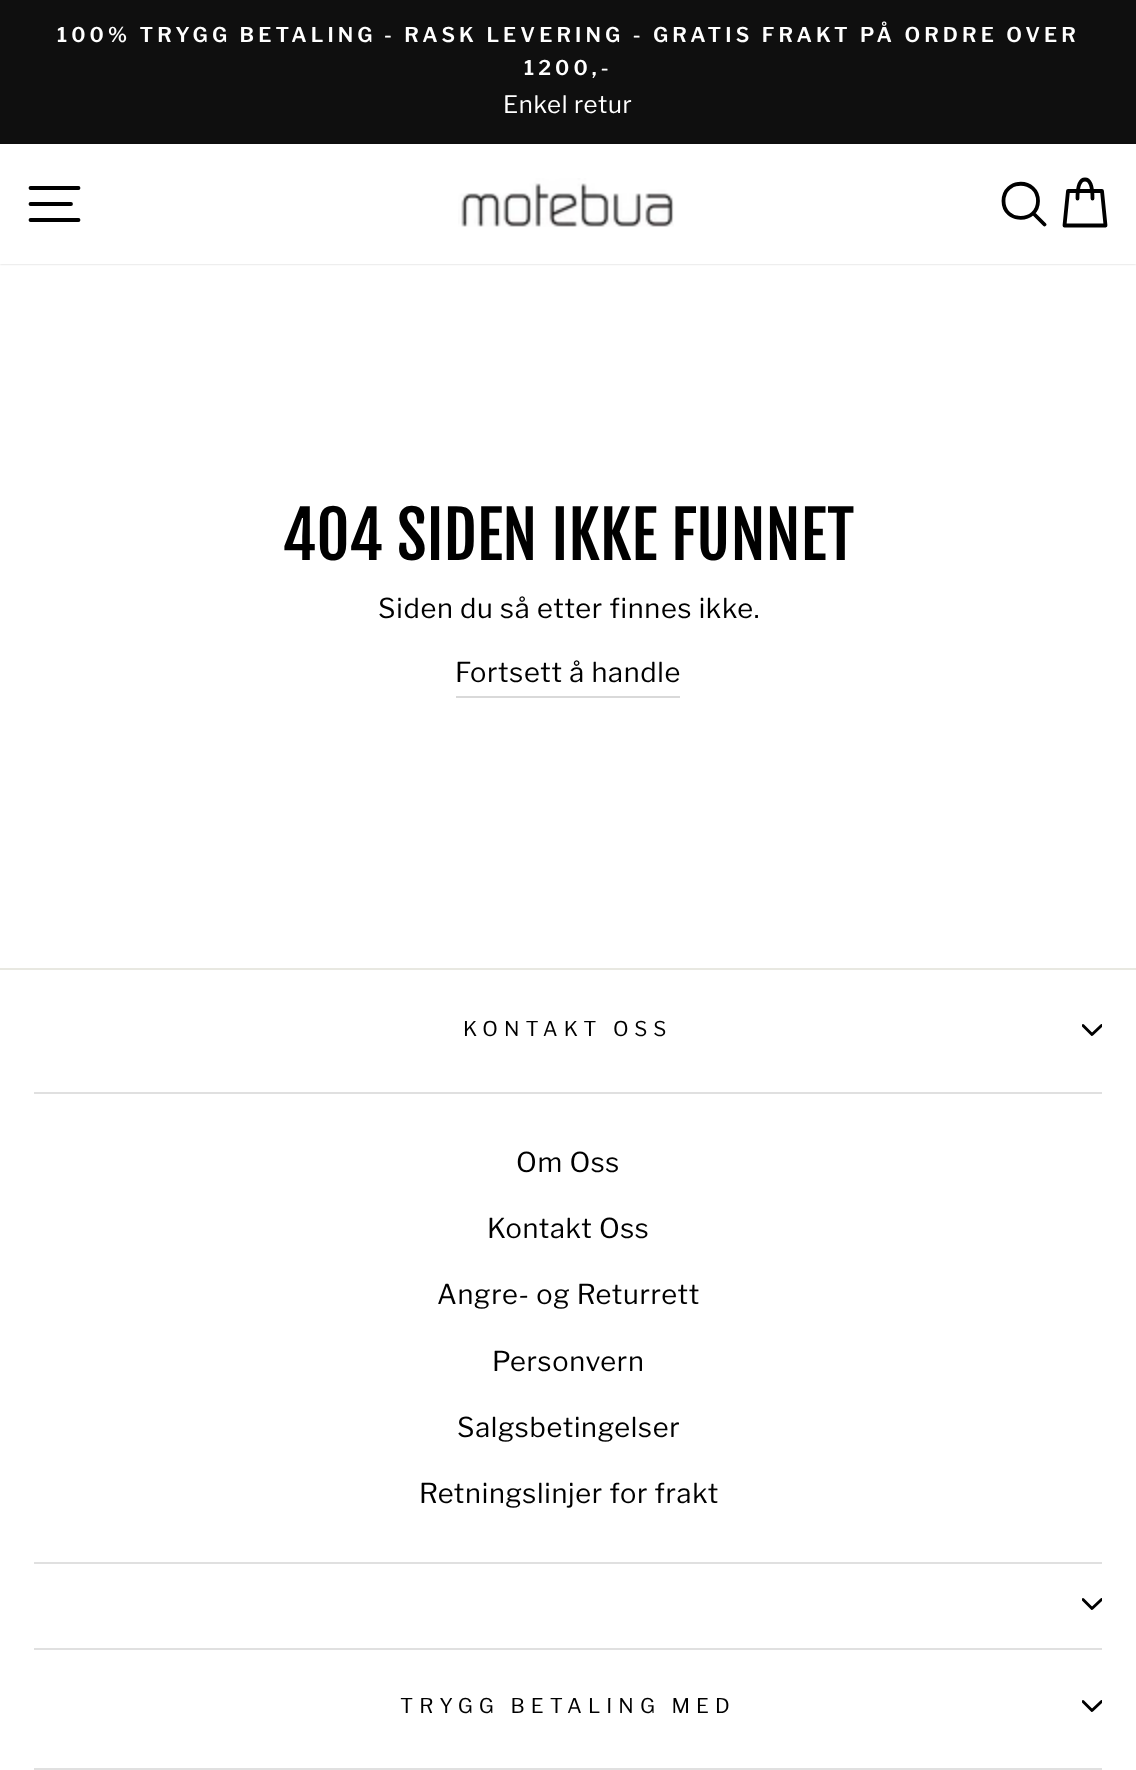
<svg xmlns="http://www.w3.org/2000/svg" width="1136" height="1770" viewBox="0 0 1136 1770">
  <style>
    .t1 { font: 600 20.4px Libre Franklin; letter-spacing: 4.1px; fill: #fff; }
    .t2 { font: 24px Libre Franklin; letter-spacing: 0.7px; fill: #fff; }
    .t3 { font: 64.5px Fjalla One; fill: #000; }
    .t4 { font: 27.25px Libre Franklin; letter-spacing: 0.7px; fill: #000; }
    .t5 { font: 20.4px Libre Franklin; letter-spacing: 6.1px; fill: #000; }
  </style>
  <defs>
    <clipPath id="clip1"><path d="M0 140H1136V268H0ZM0 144H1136V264H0Z" clip-rule="evenodd"/></clipPath>
    <clipPath id="clip2"><rect x="1082" y="1020" width="20" height="20"/></clipPath>
    <clipPath id="clip3"><rect x="1082" y="1594" width="20" height="20"/></clipPath>
    <clipPath id="clip4"><rect x="1082" y="1696" width="20" height="20"/></clipPath>
  </defs>
  <rect width="100%" height="100%" fill="#fff"/>
  <rect x="0" y="0" width="1136" height="144" fill="#0f0f0f"/>
  <text x="57" y="42" class="t1">100% TRYGG BETALING</text>
  <text x="384" y="42" class="t1">- RASK LEVERING - GRATIS FRAKT PÅ ORDRE OVER</text>
  <text x="524" y="75" class="t1">1200,-</text>
  <text x="503" y="113" class="t2">Enkel retur</text>
  <g clip-path="url(#clip1)">
    <rect x="0" y="144" width="1136" height="120" fill="#00000033" filter="blur(1px)"/>
  </g>
  <path d="M30.5 188H78.5M30.5 204H71M30.5 220H78.5" fill="none" stroke="#000" stroke-width="3.8" stroke-linecap="round" stroke-linejoin="round"/>
  <image x="458" y="178" width="216" height="49" href="images/1.png"/>
  <path d="M1038 201C1038 223.5 1003.5 223.5 1003.5 201C1003.5 178 1038 178 1038 201ZM1044.5 224.5L1033.5 213.5" fill="none" stroke="#000" stroke-width="3.8" stroke-linecap="round" stroke-linejoin="round"/>
  <path d="M1077.5 198.5C1077.5 183.5 1081 179.5 1085 179.5C1089 179.5 1092.5 183.5 1092.5 198.5M1068 191H1102L1105.5 225.5H1064.5Z" fill="none" stroke="#000" stroke-width="3.8" stroke-linecap="round" stroke-linejoin="round"/>
  <text x="282" y="560" class="t3">404 SIDEN IKKE FUNNET</text>
  <text x="378" y="618" class="t4">Siden du så etter finnes ikke.</text>
  <rect x="456" y="696" width="224" height="2" fill="#d9d9d9"/>
  <text x="455" y="682" class="t4">Fortsett å handle</text>
  <rect x="0" y="968" width="1136" height="2" fill="#e8e8e1"/>
  <text x="463" y="1036" class="t5">KONTAKT OSS</text>
  <g clip-path="url(#clip2)">
    <path d="M1083 1025.5L1092 1034.5L1101.5 1025.5" fill="none" stroke="#000" stroke-width="2.9" stroke-linecap="round" stroke-linejoin="round"/>
  </g>
  <rect x="34" y="1092" width="1068" height="2" fill="#e0e0e0"/>
  <text x="516" y="1172" class="t4">Om Oss</text>
  <text x="487" y="1238" class="t4">Kontakt Oss</text>
  <text x="437" y="1304" class="t4">Angre- og Returrett</text>
  <text x="492" y="1371" class="t4">Personvern</text>
  <text x="457" y="1437" class="t4">Salgsbetingelser</text>
  <text x="419" y="1503" class="t4">Retningslinjer for frakt</text>
  <rect x="34" y="1562" width="1068" height="2" fill="#e0e0e0"/>
  <g clip-path="url(#clip3)">
    <path d="M1083 1599.5L1092 1608.5L1101.5 1599.5" fill="none" stroke="#000" stroke-width="2.9" stroke-linecap="round" stroke-linejoin="round"/>
  </g>
  <rect x="34" y="1648" width="1068" height="2" fill="#e0e0e0"/>
  <text x="400" y="1713" class="t5">TRYGG BETALING MED</text>
  <g clip-path="url(#clip4)">
    <path d="M1083 1701.5L1092 1710.5L1101.5 1701.5" fill="none" stroke="#000" stroke-width="2.9" stroke-linecap="round" stroke-linejoin="round"/>
  </g>
  <rect x="34" y="1768" width="1068" height="2" fill="#e0e0e0"/>
</svg>
